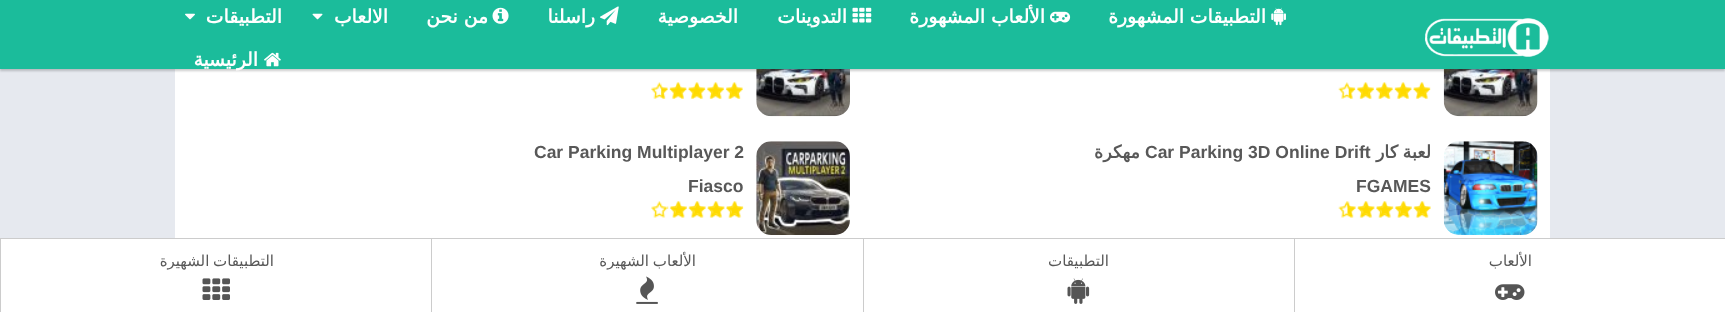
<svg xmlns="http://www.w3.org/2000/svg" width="1725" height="312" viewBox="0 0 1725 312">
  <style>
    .t1 { font: bold 18.75px DejaVu Sans; direction: rtl; fill: #fff; }
    .t2 { font: bold 17.5px DejaVu Sans; direction: rtl; fill: #585858; }
    .t3 { font: bold 17.5px Liberation Sans; fill: #585858; }
    .t4 { font: 15px DejaVu Sans; direction: rtl; fill: #585858; }
  </style>
  <rect width="100%" height="100%" fill="#e6e9ef"/>
  <rect x="175" y="69" width="1375" height="169" fill="#fff"/>
  <image x="1443" y="69" width="95" height="48" href="images/10.png"/>
  <image x="756" y="69" width="94" height="48" href="images/13.png"/>
  <rect x="0" y="3" width="1725" height="68" fill="#00000033" filter="blur(1px)"/>
  <rect x="0" y="0" width="1725" height="69" fill="#1bbc9b"/>
  <image x="1425" y="18" width="124" height="39" href="images/1.png"/>
  <image x="1271" y="7" width="15" height="19" href="images/2.png"/>
  <text x="1266" y="23" class="t1">التطبيقات المشهورة</text>
  <image x="1050" y="11" width="21" height="12" href="images/3.png"/>
  <text x="1045" y="23" class="t1">الألعاب المشهورة</text>
  <image x="852" y="7" width="20" height="16" href="images/4.png"/>
  <text x="847" y="23" class="t1">التدوينات</text>
  <text x="738" y="23" class="t1">الخصوصية</text>
  <image x="600" y="6" width="19" height="20" href="images/5.png"/>
  <text x="595" y="23" class="t1">راسلنا</text>
  <image x="492" y="7" width="17" height="17" href="images/6.png"/>
  <text x="488" y="23" class="t1">من نحن</text>
  <text x="388" y="23" class="t1">الالعاب</text>
  <image x="312" y="13" width="11" height="7" href="images/7.png"/>
  <text x="282" y="23" class="t1">التطبيقات</text>
  <image x="185" y="13" width="10" height="7" href="images/8.png"/>
  <image x="264" y="52" width="17" height="15" href="images/9.png"/>
  <text x="258" y="66" class="t1">الرئيسية</text>
  <image x="1338" y="82" width="93" height="17" href="images/11.png"/>
  <image x="1348" y="82" width="83" height="17" href="images/12.png"/>
  <image x="651" y="82" width="92" height="17" href="images/14.png"/>
  <image x="661" y="82" width="82" height="17" href="images/15.png"/>
  <image x="1443" y="141" width="95" height="94" href="images/16.png"/>
  <text x="1431" y="158" word-spacing="-1" class="t2">لعبة كار</text>
  <text x="1145" y="158" class="t3">Car Parking 3D Online Drift</text>
  <text x="1140" y="158" class="t2">مهكرة</text>
  <text x="1356" y="192" class="t3">FGAMES</text>
  <image x="1338" y="201" width="93" height="17" href="images/17.png"/>
  <image x="1347" y="201" width="84" height="17" href="images/18.png"/>
  <image x="756" y="141" width="94" height="94" href="images/19.png"/>
  <text x="534" y="158" class="t3">Car Parking Multiplayer 2</text>
  <text x="688" y="192" class="t3">Fiasco</text>
  <image x="651" y="201" width="92" height="17" href="images/20.png"/>
  <image x="667" y="201" width="77" height="17" href="images/21.png"/>
  <rect x="1" y="239" width="1724" height="73" fill="#fff"/>
  <rect x="0" y="238" width="1725" height="1" fill="#ccc"/>
  <rect x="1294" y="239" width="1" height="73" fill="#ccc"/>
  <text x="1532" y="266" class="t4">الألعاب</text>
  <image x="1495" y="284" width="30" height="16" href="images/22.png"/>
  <rect x="863" y="239" width="1" height="73" fill="#ccc"/>
  <text x="1109" y="266" class="t4">التطبيقات</text>
  <image x="1067" y="278" width="23" height="26" href="images/23.png"/>
  <rect x="431" y="239" width="1" height="73" fill="#ccc"/>
  <text x="696" y="266" word-spacing="-1" class="t4">الألعاب الشهيرة</text>
  <image x="636" y="276" width="22" height="28" href="images/24.png"/>
  <rect x="0" y="239" width="1" height="73" fill="#ccc"/>
  <text x="274" y="266" word-spacing="-1" class="t4">التطبيقات الشهيرة</text>
  <image x="202" y="278" width="28" height="22" href="images/25.png"/>
</svg>
